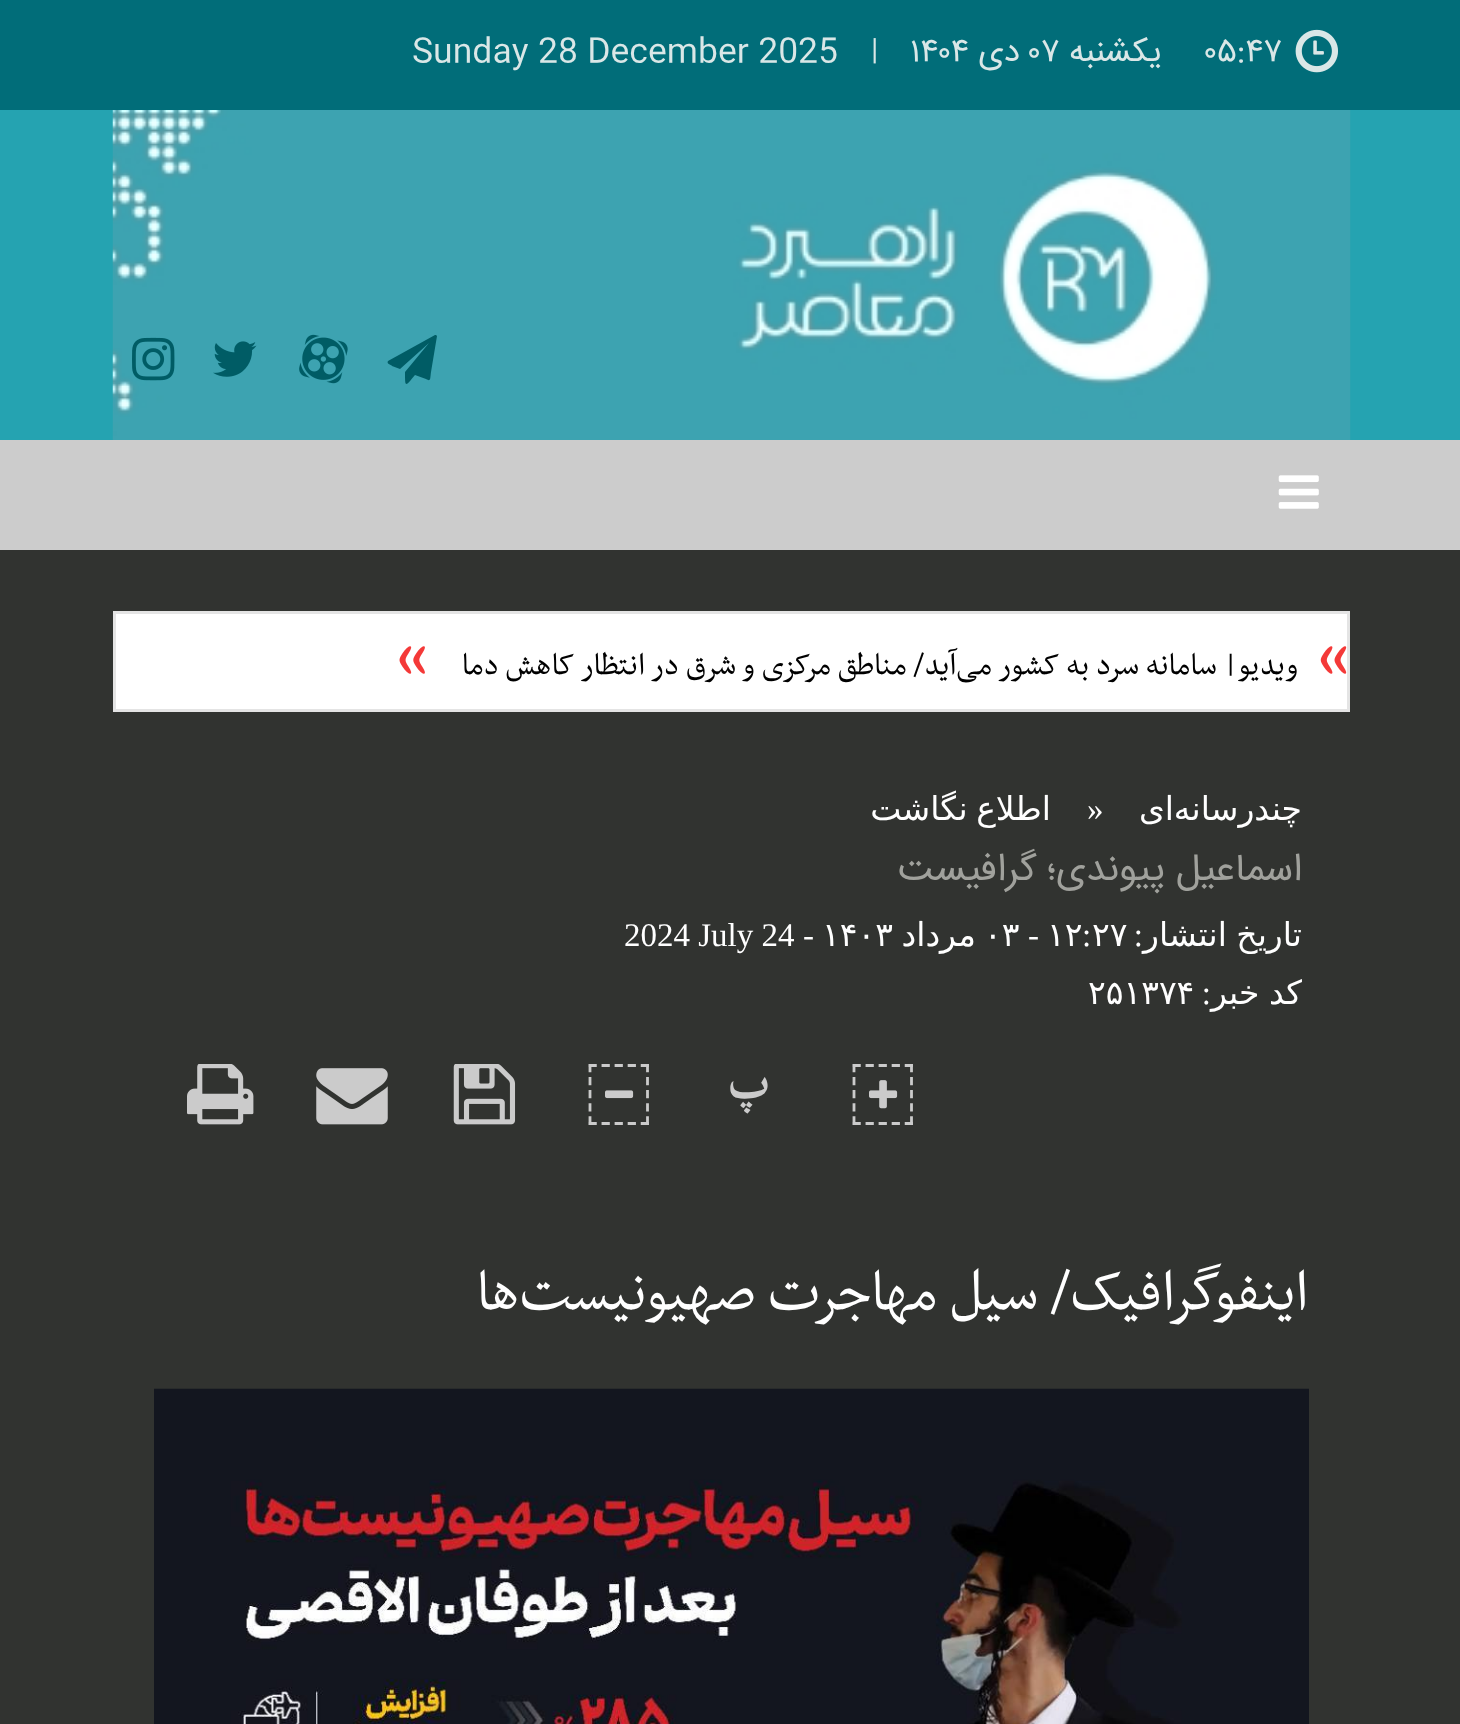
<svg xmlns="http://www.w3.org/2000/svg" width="1460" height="1724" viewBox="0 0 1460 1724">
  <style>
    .t1 { font: 33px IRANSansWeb; fill: #dae7e7; }
    .t2 { font: 33px IRANSansWeb; direction: rtl; fill: #dae7e7; }
    .t3 { font: 28px IRANSansWeb; fill: #dae7e7; }
    .t4 { font: 35.75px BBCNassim; direction: rtl; fill: #000; }
    .t5 { font: 33px DejaVu Sans; direction: rtl; fill: #fff; }
    .t6 { font: 33px Liberation Serif; fill: #fff; }
    .t7 { font: 38.5px IRANSansWeb; direction: rtl; fill: #a0a19c; }
    .t8 { font: 33px Liberation Serif; direction: rtl; fill: #fff; }
    .t9 { font: 33px DejaVu Sans; fill: #fff; }
    .t10 { font: bold 50px BBCNassim; direction: rtl; fill: #cbcbcb; }
    .t11 { font: 66px BBCNassim; direction: rtl; fill: #fff; }
  </style>
  <rect width="100%" height="100%" fill="#313330"/>
  <rect x="0" y="0" width="1460" height="110" fill="#016d79"/>
  <rect x="0" y="110" width="1460" height="330" fill="#25a3b1"/>
  <rect x="0" y="440" width="1460" height="110" fill="#ccc"/>
  <image x="1295" y="29" width="43" height="44" href="images/1.png"/>
  <text x="1203" y="61" class="t1">۰۵:۴۷</text>
  <text x="1162" y="61" class="t2">يکشنبه</text>
  <text x="1029" y="61" class="t1">۰۷</text>
  <text x="1020" y="61" class="t2">دی</text>
  <text x="910" y="61" class="t1">۱۴۰۴</text>
  <text x="871" y="58" class="t3">|</text>
  <text x="412" y="61" class="t1">Sunday 28 December 2025</text>
  <image x="112" y="110" width="1239" height="330" href="images/2.png"/>
  <path d="M436 335L437 336L431 372C430 379 431 382 426 379L415 375C405 387 405 388 405 372L429 343L400 369L392 366C392 365 386 364 388 361L435 335Z" fill="#005c65"/>
  <image x="299" y="334" width="49" height="50" href="images/3.png"/>
  <image x="213" y="341" width="44" height="36" href="images/4.png"/>
  <image x="132" y="337" width="43" height="44" href="images/5.png"/>
  <image x="1278" y="475" width="41" height="34" href="images/6.png"/>
  <rect x="114.5" y="612.5" width="1234" height="98" fill="#fff" stroke="#e4e4e4" stroke-width="3"/>
  <image x="1320" y="646" width="27" height="28" href="images/7.png"/>
  <text x="1298" y="674" class="t4">ویدیو| سامانه سرد به کشور می‌آید/ مناطق مرکزی و شرق در انتظار کاهش دما</text>
  <image x="399" y="646" width="26" height="28" href="images/8.png"/>
  <text x="1302" y="820" class="t5">چندرسانه</text>
  <text x="1174" y="820" class="t5">ای</text>
  <text x="1087" y="820" class="t6">»</text>
  <text x="1051" y="820" word-spacing="-2" class="t5">اطلاع نگاشت</text>
  <text x="1302" y="880" class="t7">اسماعیل پیوندی؛ گرافیست</text>
  <text x="1302" y="946" word-spacing="-1" class="t5">تاریخ انتشار</text>
  <text x="1143" y="946" class="t8">:</text>
  <text x="1092" y="946" class="t9">۲۷</text>
  <text x="1082" y="946" class="t6">:</text>
  <text x="1047" y="946" class="t9">۱۲</text>
  <text x="1028" y="946" class="t6">-</text>
  <text x="984" y="946" class="t9">۰۳</text>
  <text x="976" y="946" class="t5">مرداد</text>
  <text x="822" y="946" class="t9">۱۴۰۳</text>
  <text x="803" y="946" class="t6">-</text>
  <text x="624" y="946" class="t6">2024 July 24</text>
  <text x="1302" y="1004" word-spacing="-1" class="t5">کد خبر</text>
  <text x="1211" y="1004" class="t8">:</text>
  <text x="1088" y="1004" class="t9">۲۵۱۳۷۴</text>
  <path d="M852.5 1065.5H913M911.5 1064V1125M852.5 1123.5H913M854 1064V1125" fill="none" stroke="#cbcbcb" stroke-width="2.8" stroke-dasharray="8.25 4.81"/>
  <image x="869" y="1080" width="29" height="29" href="images/9.png"/>
  <text x="769" y="1097" class="t10">پ</text>
  <path d="M588.5 1065.5H649M647.5 1064V1125M588.5 1123.5H649M590 1064V1125" fill="none" stroke="#cbcbcb" stroke-width="2.8" stroke-dasharray="8.25 4.81"/>
  <image x="605" y="1090" width="29" height="9" href="images/10.png"/>
  <image x="453" y="1064" width="63" height="61" href="images/11.png"/>
  <image x="316" y="1068" width="72" height="57" href="images/12.png"/>
  <image x="187" y="1064" width="67" height="61" href="images/13.png"/>
  <text x="1308" y="1309" class="t11">اینفوگرافیک/ سیل مهاجرت صهیونیست‌ها</text>
  <image x="154" y="1388" width="1155" height="336" href="images/14.png"/>
</svg>
